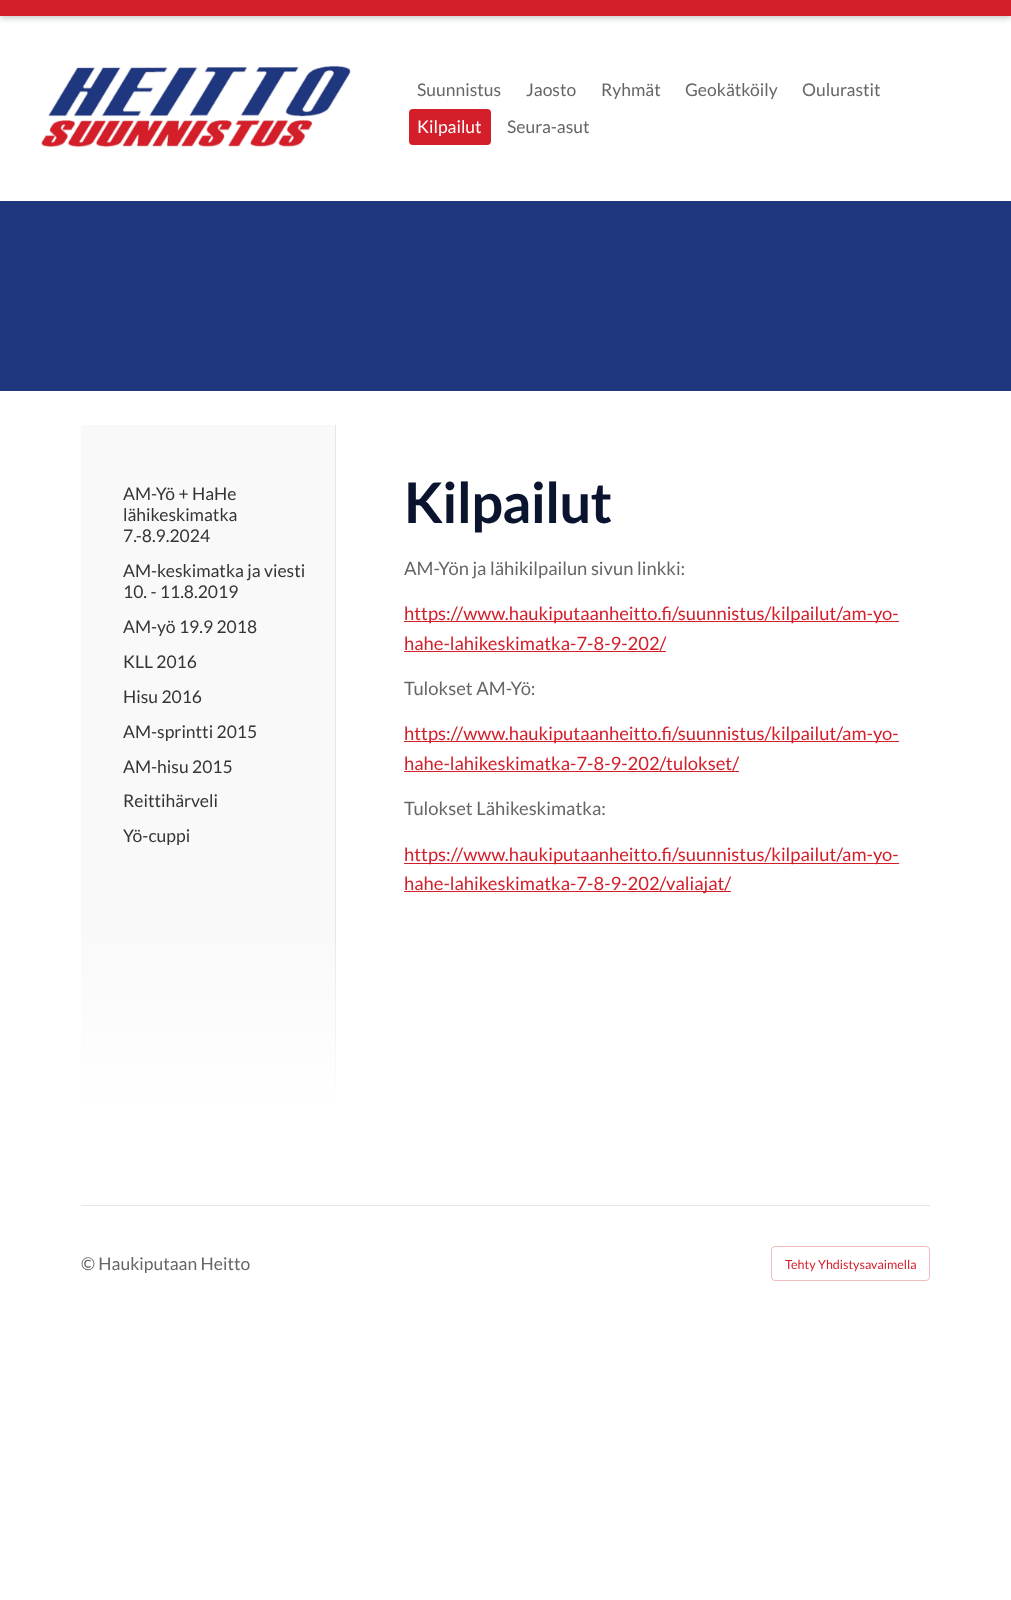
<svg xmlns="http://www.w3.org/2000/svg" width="1011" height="1600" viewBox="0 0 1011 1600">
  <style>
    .t1 { font: 17.5px Lato; fill: #666; }
    .t2 { font: 17.5px Lato; fill: #fff; }
    .t3 { font: 17.5px Lato; fill: #353535; }
    .t4 { font: bold 56px Lato; letter-spacing: -0.75px; fill: #0b142e; }
    .t5 { font: 18.4px Lato; fill: #666; }
    .t6 { font: 18.4px Lato; fill: #d41f2b; }
    .t7 { font: 12.5px Lato; fill: #d41f2b; }
  </style>
  <defs>
    <linearGradient id="g1" gradientUnits="userSpaceOnUse" x1="209" y1="924" x2="209" y2="1111"><stop offset="0" stop-color="#fff" stop-opacity="0"/><stop offset="1" stop-color="#fff"/></linearGradient>
  </defs>
  <rect width="100%" height="100%" fill="#fff"/>
  <rect x="0" y="-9" width="1011" height="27" fill="#3b4a4a4d" filter="blur(3px)"/>
  <rect x="0" y="0" width="1011" height="16" fill="#d41f2b"/>
  <rect x="0" y="201" width="1011" height="190" fill="#1f377f"/>
  <image x="41" y="65" width="310" height="83" href="images/1.png"/>
  <text x="417" y="96" class="t1">Suunnistus</text>
  <text x="526" y="96" class="t1">Jaosto</text>
  <text x="601" y="96" class="t1">Ryhmät</text>
  <text x="685" y="96" class="t1">Geokätköily</text>
  <text x="802" y="96" class="t1">Oulurastit</text>
  <rect x="409" y="109" width="82" height="36" rx="4" fill="#d41f2b"/>
  <text x="417" y="133" class="t2">Kilpailut</text>
  <text x="507" y="133" class="t1">Seura-asut</text>
  <path d="M85 425H336V1111H81V429C81 427 83 425 85 425Z" fill="#f9f9f9"/>
  <rect x="335" y="425" width="1" height="686" fill="#e6e6e6"/>
  <text x="123" y="500" class="t3">AM-Yö + HaHe</text>
  <text x="123" y="521" class="t3">lähikeskimatka</text>
  <text x="123" y="542" class="t3">7.-8.9.2024</text>
  <text x="123" y="577" class="t3">AM-keskimatka ja viesti</text>
  <text x="123" y="598" class="t3">10. - 11.8.2019</text>
  <text x="123" y="633" class="t3">AM-yö 19.9 2018</text>
  <text x="123" y="668" class="t3">KLL 2016</text>
  <text x="123" y="703" class="t3">Hisu 2016</text>
  <text x="123" y="738" class="t3">AM-sprintti 2015</text>
  <text x="123" y="773" class="t3">AM-hisu 2015</text>
  <text x="123" y="807" class="t3">Reittihärveli</text>
  <text x="123" y="842" class="t3">Yö-cuppi</text>
  <rect x="81" y="943" width="255" height="168" fill="url(#g1)"/>
  <text x="404" y="523" class="t4">Kilpailut</text>
  <text x="404" y="575" class="t5">AM-Yön ja lähikilpailun sivun linkki:</text>
  <rect x="404" y="621" width="495" height="1" fill="#d41f2b"/>
  <text x="404" y="620" class="t6">https://www.haukiputaanheitto.fi/suunnistus/kilpailut/am-yo-</text>
  <text x="404" y="650" class="t6">hahe-lahikeskimatka-7-8-9-202/</text>
  <rect x="404" y="651" width="262" height="1" fill="#d41f2b"/>
  <text x="404" y="695" class="t5">Tulokset AM-Yö:</text>
  <rect x="404" y="741" width="495" height="1" fill="#d41f2b"/>
  <text x="404" y="740" class="t6">https://www.haukiputaanheitto.fi/suunnistus/kilpailut/am-yo-</text>
  <text x="404" y="770" class="t6">hahe-lahikeskimatka-7-8-9-202/tulokset/</text>
  <rect x="404" y="771" width="335" height="1" fill="#d41f2b"/>
  <text x="404" y="815" class="t5">Tulokset Lähikeskimatka:</text>
  <rect x="404" y="863" width="495" height="1" fill="#d41f2b"/>
  <text x="404" y="861" class="t6">https://www.haukiputaanheitto.fi/suunnistus/kilpailut/am-yo-</text>
  <rect x="404" y="891" width="327" height="1" fill="#d41f2b"/>
  <text x="404" y="890" class="t6">hahe-lahikeskimatka-7-8-9-202/valiajat/</text>
  <rect x="81" y="1205" width="849" height="1" fill="#e6e6e6"/>
  <text x="81" y="1270" class="t1">© Haukiputaan Heitto</text>
  <rect x="771.5" y="1246.5" width="158" height="34" rx="3.5" fill="none" stroke="#f2bcbf"/>
  <text x="785" y="1269" class="t7">Tehty Yhdistysavaimella</text>
</svg>
